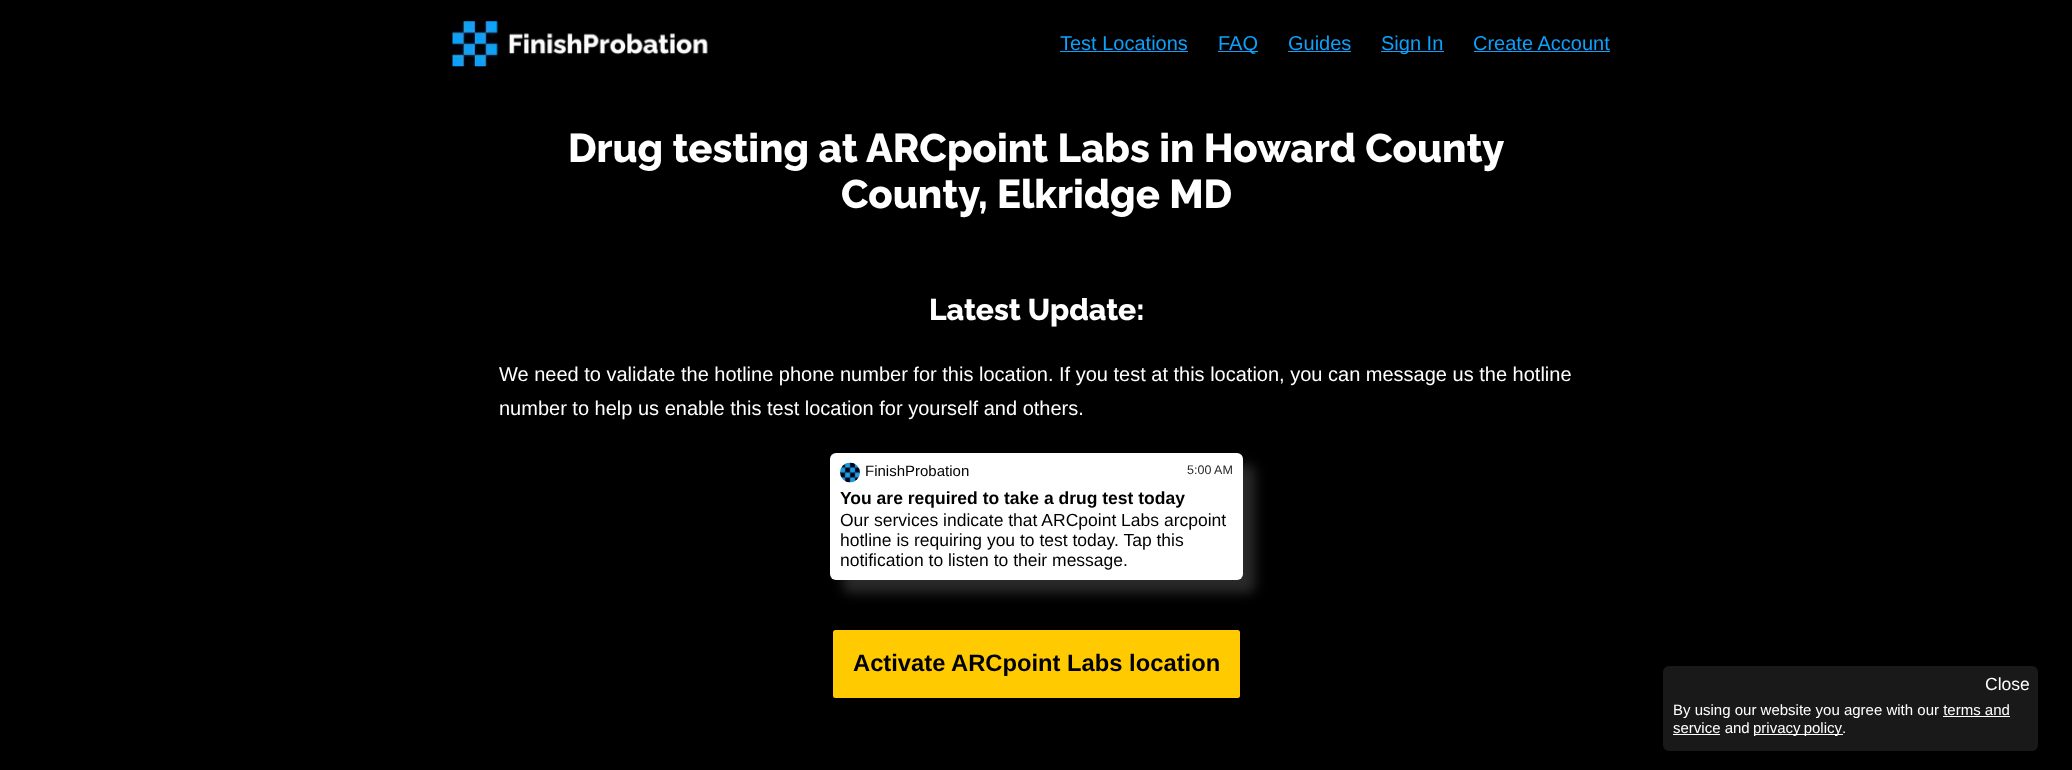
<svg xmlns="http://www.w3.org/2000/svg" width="2072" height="770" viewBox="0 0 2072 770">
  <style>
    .t1 { font: 20px Liberation Sans; fill: #0da1fc; }
    .t2 { font: 100 40px Raleway; fill: #fff; }
    .t3 { font: 100 30px Raleway; fill: #fff; }
    .t4 { font: 20px Liberation Sans; fill: #fff; }
    .t5 { font: 15px Liberation Sans; fill: #000; }
    .t6 { font: 12.5px Liberation Sans; fill: #292929; }
    .t7 { font: bold 17.5px Liberation Sans; fill: #000; }
    .t8 { font: 17.5px Liberation Sans; fill: #000; }
    .t9 { font: bold 23.75px Liberation Sans; fill: #000; }
    .t10 { font: 17.5px Liberation Sans; fill: #fff; }
    .t11 { font: 15px Liberation Sans; fill: #fff; }
  </style>
  <rect width="100%" height="100%" fill="#000"/>
  <image x="452" y="21" width="256" height="46" href="images/1.png"/>
  <text x="1060" y="50" class="t1">Test Locations</text>
  <rect x="1060" y="51" width="128" height="1" fill="#0da1fc"/>
  <rect x="1218" y="51" width="40" height="1" fill="#0da1fc"/>
  <text x="1218" y="50" class="t1">FAQ</text>
  <text x="1288" y="50" class="t1">Guides</text>
  <rect x="1288" y="51" width="63" height="1" fill="#0da1fc"/>
  <rect x="1381" y="51" width="63" height="1" fill="#0da1fc"/>
  <text x="1381" y="50" class="t1">Sign In</text>
  <text x="1473" y="50" class="t1">Create Account</text>
  <rect x="1474" y="51" width="136" height="1" fill="#0da1fc"/>
  <text x="568" y="162" class="t2">Drug testing at</text>
  <text x="866" y="162" class="t2">ARCpoint Labs in Howard County</text>
  <text x="841" y="208" class="t2">County, Elkridge MD</text>
  <text x="929" y="320" class="t3">Latest Update:</text>
  <text x="499" y="381" class="t4">We need to validate the hotline phone number for this location. If you test at this location, you can message us the hotline</text>
  <text x="499" y="415" class="t4">number to help us enable this test location for yourself and others.</text>
  <rect x="843" y="465" width="412" height="128" rx="6" fill="#292929" filter="blur(6px)"/>
  <rect x="830" y="453" width="413" height="127" rx="6" fill="#fff"/>
  <image x="840" y="462" width="20" height="21" href="images/2.png"/>
  <text x="865" y="476" class="t5">FinishProbation</text>
  <text x="1187" y="474" class="t6">5:00 AM</text>
  <text x="840" y="504" class="t7">You are required to take a drug test today</text>
  <text x="840" y="526" class="t8">Our services indicate that ARCpoint Labs arcpoint</text>
  <text x="840" y="546" class="t8">hotline is requiring you to test today. Tap this</text>
  <text x="840" y="566" class="t8">notification to listen to their message.</text>
  <rect x="833" y="630" width="407" height="68" rx="2.5" fill="#ffca00"/>
  <text x="853" y="671" class="t9">Activate</text>
  <text x="951" y="671" class="t9">ARCpoint Labs location</text>
  <rect x="1663" y="666" width="375" height="85" rx="6" fill="#191919"/>
  <text x="1985" y="690" class="t10">Close</text>
  <text x="1673" y="715" class="t11">By using our website you agree with our terms and</text>
  <text x="1673" y="733" class="t11">service and</text>
  <rect x="1943" y="716" width="67" height="1" fill="#fff"/>
  <rect x="1673" y="734" width="47" height="1" fill="#fff"/>
  <rect x="1754" y="734" width="89" height="1" fill="#fff"/>
  <text x="1753" y="733" word-spacing="-1" class="t11">privacy policy</text>
  <text x="1842" y="733" class="t11">.</text>
</svg>
